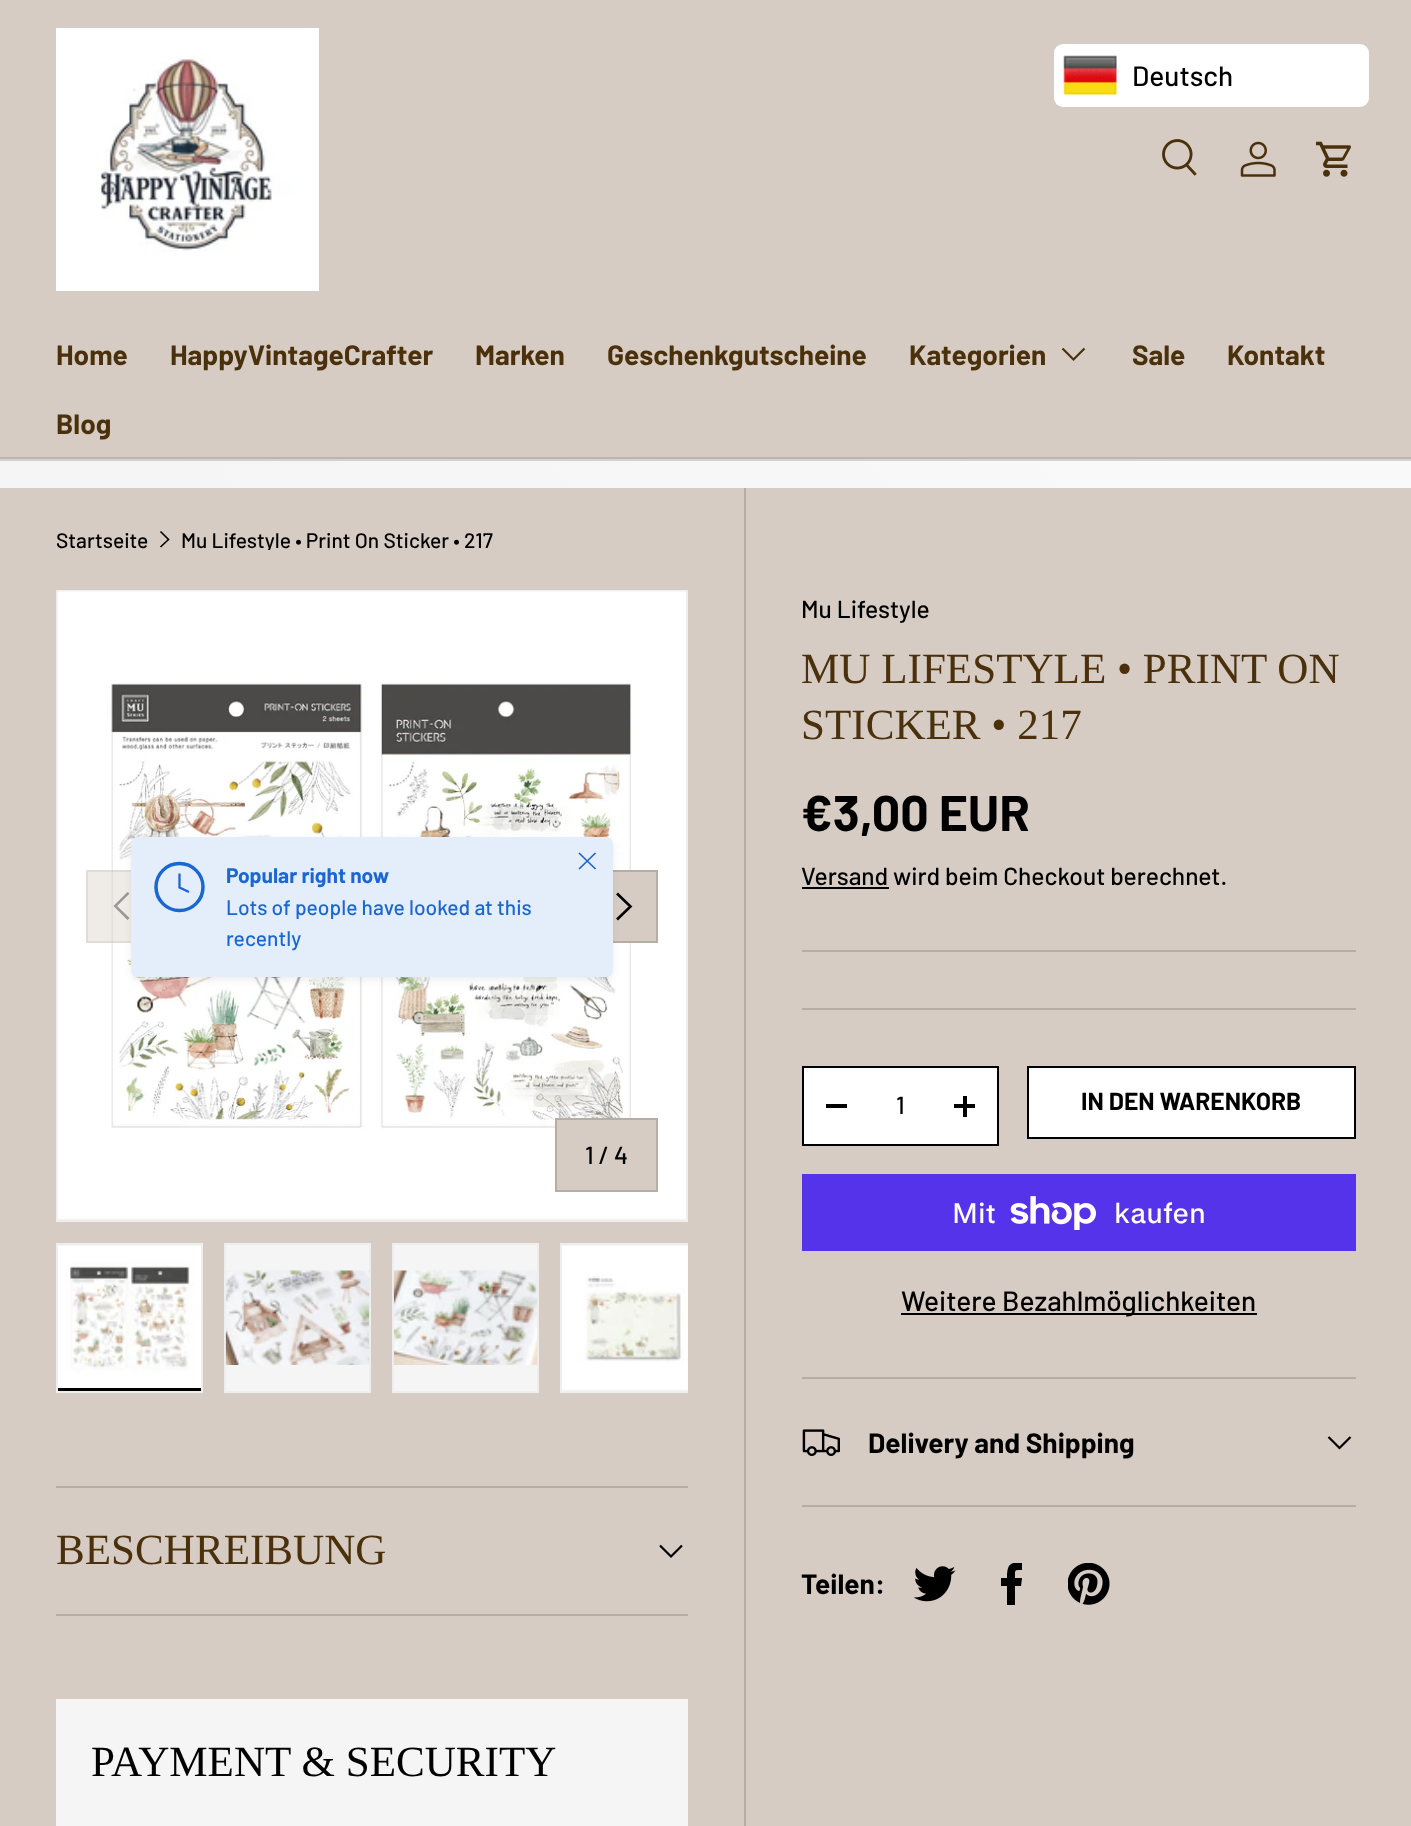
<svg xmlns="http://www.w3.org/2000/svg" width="1411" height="1826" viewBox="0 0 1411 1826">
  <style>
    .t1 { font: 500 28px Barlow; fill: #000; }
    .t2 { font: bold 28px Barlow; fill: #4b300c; }
    .t3 { font: 500 21px Barlow; fill: #000; }
    .t4 { font: bold 21px Barlow; fill: #1a66d2; }
    .t5 { font: 500 21px Barlow; fill: #1a66d2; }
    .t6 { font: 500 24.6px Barlow; fill: #000; }
    .t7 { font: 43.1px Liberation Serif; fill: #4b300c; }
    .t8 { font: bold 50px Barlow; fill: #000; }
    .t9 { font: bold 24.6px Barlow; fill: #000; }
    .t10 { font: 500 28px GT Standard; fill: #fff; }
    .t11 { font: bold 28px Barlow; fill: #000; }
    .t12 { font: 43.1px Liberation Serif; fill: #000; }
  </style>
  <defs>
    <linearGradient id="g1" gradientUnits="userSpaceOnUse" x1="334" y1="806" x2="1079" y2="87"><stop offset="0.13" stop-color="#d0d0d0"/><stop offset="0.86" stop-color="#d4d4d4"/></linearGradient>
    <linearGradient id="g2" gradientUnits="userSpaceOnUse" x1="334" y1="834" x2="1079" y2="115"><stop offset="0.13" stop-color="#f5f5f5"/><stop offset="0.86" stop-color="#f9f9f9"/></linearGradient>
    <linearGradient id="g3" gradientUnits="userSpaceOnUse" x1="334" y1="834" x2="1079" y2="115"><stop offset="0.13" stop-color="#d0d0d0"/><stop offset="0.86" stop-color="#d4d4d4"/></linearGradient>
    <clipPath id="clip1"><rect x="182" y="529" width="312" height="21"/></clipPath>
    <clipPath id="clip2"><rect x="56" y="1243" width="632" height="159"/></clipPath>
    <linearGradient id="g4" gradientUnits="userSpaceOnUse" x1="398" y1="986" x2="1334" y2="1219"><stop offset="0.6" stop-color="#e9e9e8"/><stop offset="0.6" stop-color="#fff"/><stop offset="1" stop-color="#fff"/></linearGradient>
    <clipPath id="clip3"><rect x="1001" y="1563" width="21" height="42"/></clipPath>
  </defs>
  <rect width="100%" height="100%" fill="#d6ccc4"/>
  <rect x="1054" y="44" width="315" height="63" rx="9" fill="#fff"/>
  <image x="1063" y="55" width="54" height="40" href="images/1.png"/>
  <text x="1132" y="86" class="t1">Deutsch</text>
  <rect x="0" y="457" width="1411" height="2" fill="#c1b5a8"/>
  <image x="56" y="28" width="263" height="263" href="images/2.png"/>
  <image x="1162" y="139" width="35" height="37" href="images/3.png"/>
  <image x="1240" y="141" width="36" height="36" href="images/4.png"/>
  <image x="1316" y="141" width="35" height="36" href="images/5.png"/>
  <text x="56" y="365" class="t2">Home</text>
  <text x="170" y="365" class="t2">HappyVintageCrafter</text>
  <text x="475" y="365" class="t2">Marken</text>
  <text x="607" y="365" class="t2">Geschenkgutscheine</text>
  <text x="909" y="365" class="t2">Kategorien</text>
  <path d="M1084.5 348.5L1073.5 359.5L1062.5 348.5" fill="none" stroke="#4b300c" stroke-width="2.2"/>
  <text x="1132" y="365" class="t2">Sale</text>
  <text x="1227" y="365" class="t2">Kontakt</text>
  <text x="56" y="434" class="t2">Blog</text>
  <rect x="0" y="459" width="1411" height="1" fill="url(#g1)"/>
  <rect x="0" y="461" width="1411" height="27" fill="url(#g2)"/>
  <rect x="0" y="460" width="1411" height="1" fill="url(#g3)"/>
  <text x="56" y="548" class="t3">Startseite</text>
  <path d="M160.5 531.5L168.5 539.5L160.5 547" fill="none" stroke="#000" stroke-width="1.6"/>
  <g clip-path="url(#clip1)">
    <text x="181" y="548" class="t3">Mu Lifestyle • Print On Sticker • 217</text>
  </g>
  <rect x="57" y="591" width="630" height="630" fill="none" stroke="#eee" stroke-width="2"/>
  <image x="57" y="591" width="629" height="629" href="images/6.png"/>
  <rect x="86" y="870" width="45" height="73" fill="#d6ccc466"/>
  <rect x="87" y="871" width="71" height="71" fill="none" stroke="#0000000f" stroke-width="2"/>
  <path d="M113.5 906L127.5 892L129.5 893.5L117 906L129.5 918L127.5 920Z" fill="#999"/>
  <rect x="613" y="872" width="43" height="69" fill="#d6ccc4"/>
  <rect x="586" y="871" width="71" height="71" fill="none" stroke="#b6ada7" stroke-width="2"/>
  <path d="M617 893.5L630.5 906.5L617 919.5" fill="none" stroke="#000" stroke-width="2.6"/>
  <rect x="131" y="840" width="482" height="140" rx="7" fill="#212b3614" filter="blur(3.5px)"/>
  <rect x="131" y="837" width="482" height="140" rx="7" fill="#e4edfa"/>
  <circle cx="179.5" cy="887" r="23.5" fill="none" stroke="#1a66d2" stroke-width="3.5"/>
  <path d="M179.5 873.5V887.5L189 892" fill="none" stroke="#1a66d2" stroke-width="2.3"/>
  <text x="226" y="883" class="t4">Popular right now</text>
  <text x="226" y="915" class="t5">Lots of people have looked at this</text>
  <text x="226" y="946" class="t5">recently</text>
  <path d="M579 869L595.5 853M579 853L595.5 869" fill="none" stroke="#1a66d2" stroke-width="1.7" stroke-linejoin="round"/>
  <rect x="556" y="1119" width="101" height="72" fill="#d6ccc4" stroke="#b6ada7" stroke-width="2"/>
  <text x="585" y="1164" class="t6">1 / 4</text>
  <rect x="58" y="1245" width="143" height="1" fill="#f5f5f5"/>
  <rect x="57" y="1244" width="145" height="148" fill="none" stroke="#eee" stroke-width="2"/>
  <image x="58" y="1246" width="143" height="142" href="images/7.png"/>
  <rect x="58" y="1388" width="143" height="3" fill="#000"/>
  <rect x="225" y="1244" width="145" height="148" fill="#f5f5f5" stroke="#eee" stroke-width="2"/>
  <image x="225" y="1270" width="145" height="95" href="images/8.png"/>
  <rect x="393" y="1244" width="145" height="148" fill="#f5f5f5" stroke="#eee" stroke-width="2"/>
  <image x="393" y="1270" width="144" height="95" href="images/9.png"/>
  <rect x="562" y="1245" width="126" height="146" fill="#f5f5f5"/>
  <g clip-path="url(#clip2)">
    <rect x="561" y="1244" width="145" height="148" fill="none" stroke="#eee" stroke-width="2"/>
  </g>
  <image x="562" y="1246" width="126" height="144" href="images/10.png"/>
  <rect x="744" y="488" width="2" height="1338" fill="#b6ada7"/>
  <text x="801" y="618" class="t6">Mu Lifestyle</text>
  <text x="801" y="683" class="t7">MU LIFESTYLE • PRINT ON</text>
  <text x="801" y="739" class="t7">STICKER • 217</text>
  <text x="801" y="831" class="t8">€3,00 EUR</text>
  <text x="801" y="885" class="t6">Versand wird beim Checkout berechnet.</text>
  <rect x="802" y="887" width="87" height="2" fill="#000"/>
  <rect x="802" y="950" width="554" height="2" fill="#b6ada7"/>
  <rect x="802" y="1008" width="554" height="2" fill="#b6ada7"/>
  <rect x="803" y="1067" width="195" height="78" fill="#fff" stroke="#000" stroke-width="2"/>
  <rect x="826" y="1104" width="21" height="4" fill="#000"/>
  <text x="896" y="1114" class="t6">1</text>
  <rect x="954" y="1104" width="21" height="4" fill="#000"/>
  <rect x="963" y="1096" width="4" height="21" fill="#000"/>
  <rect x="1029" y="1068" width="325" height="69" fill="url(#g4)"/>
  <rect x="1028" y="1067" width="327" height="71" fill="none" stroke="#000" stroke-width="2"/>
  <text x="1081" y="1110" class="t9">IN DEN WARENKORB</text>
  <rect x="802" y="1174" width="554" height="77" fill="#5433eb"/>
  <text x="952" y="1223" class="t10">Mit</text>
  <image x="1010" y="1196" width="86" height="34" href="images/11.png"/>
  <text x="1114" y="1223" class="t10">kaufen</text>
  <rect x="901" y="1313" width="356" height="2" fill="#000"/>
  <text x="901" y="1311" class="t1">Weitere Bezahlmöglichkeiten</text>
  <rect x="802" y="1377" width="554" height="2" fill="#b6ada7"/>
  <rect x="802" y="1505" width="554" height="2" fill="#b6ada7"/>
  <image x="802" y="1429" width="38" height="27" href="images/12.png"/>
  <text x="868" y="1453" class="t11">Delivery and Shipping</text>
  <path d="M1350.5 1437L1339.5 1448L1328.5 1437" fill="none" stroke="#000" stroke-width="2.2"/>
  <text x="801" y="1594" class="t11">Teilen:</text>
  <image x="914" y="1566" width="42" height="36" href="images/13.png"/>
  <g clip-path="url(#clip3)">
    <path d="M1015 1586H1021L1022 1578H1015C1015 1570 1014 1570 1022 1570V1563C1009 1561 1007 1566 1007 1578H1001V1586H1007V1605H1015Z" fill="#000"/>
  </g>
  <image x="1068" y="1563" width="42" height="42" href="images/14.png"/>
  <rect x="56" y="1486" width="632" height="2" fill="#b6ada7"/>
  <rect x="56" y="1614" width="632" height="2" fill="#b6ada7"/>
  <text x="56" y="1564" class="t7">BESCHREIBUNG</text>
  <path d="M682 1545.5L671 1556.5L660 1545.5" fill="none" stroke="#000" stroke-width="2.2"/>
  <rect x="56" y="1699" width="632" height="127" fill="#f5f5f5"/>
  <text x="91" y="1776" class="t12">PAYMENT &amp; SECURITY</text>
</svg>
